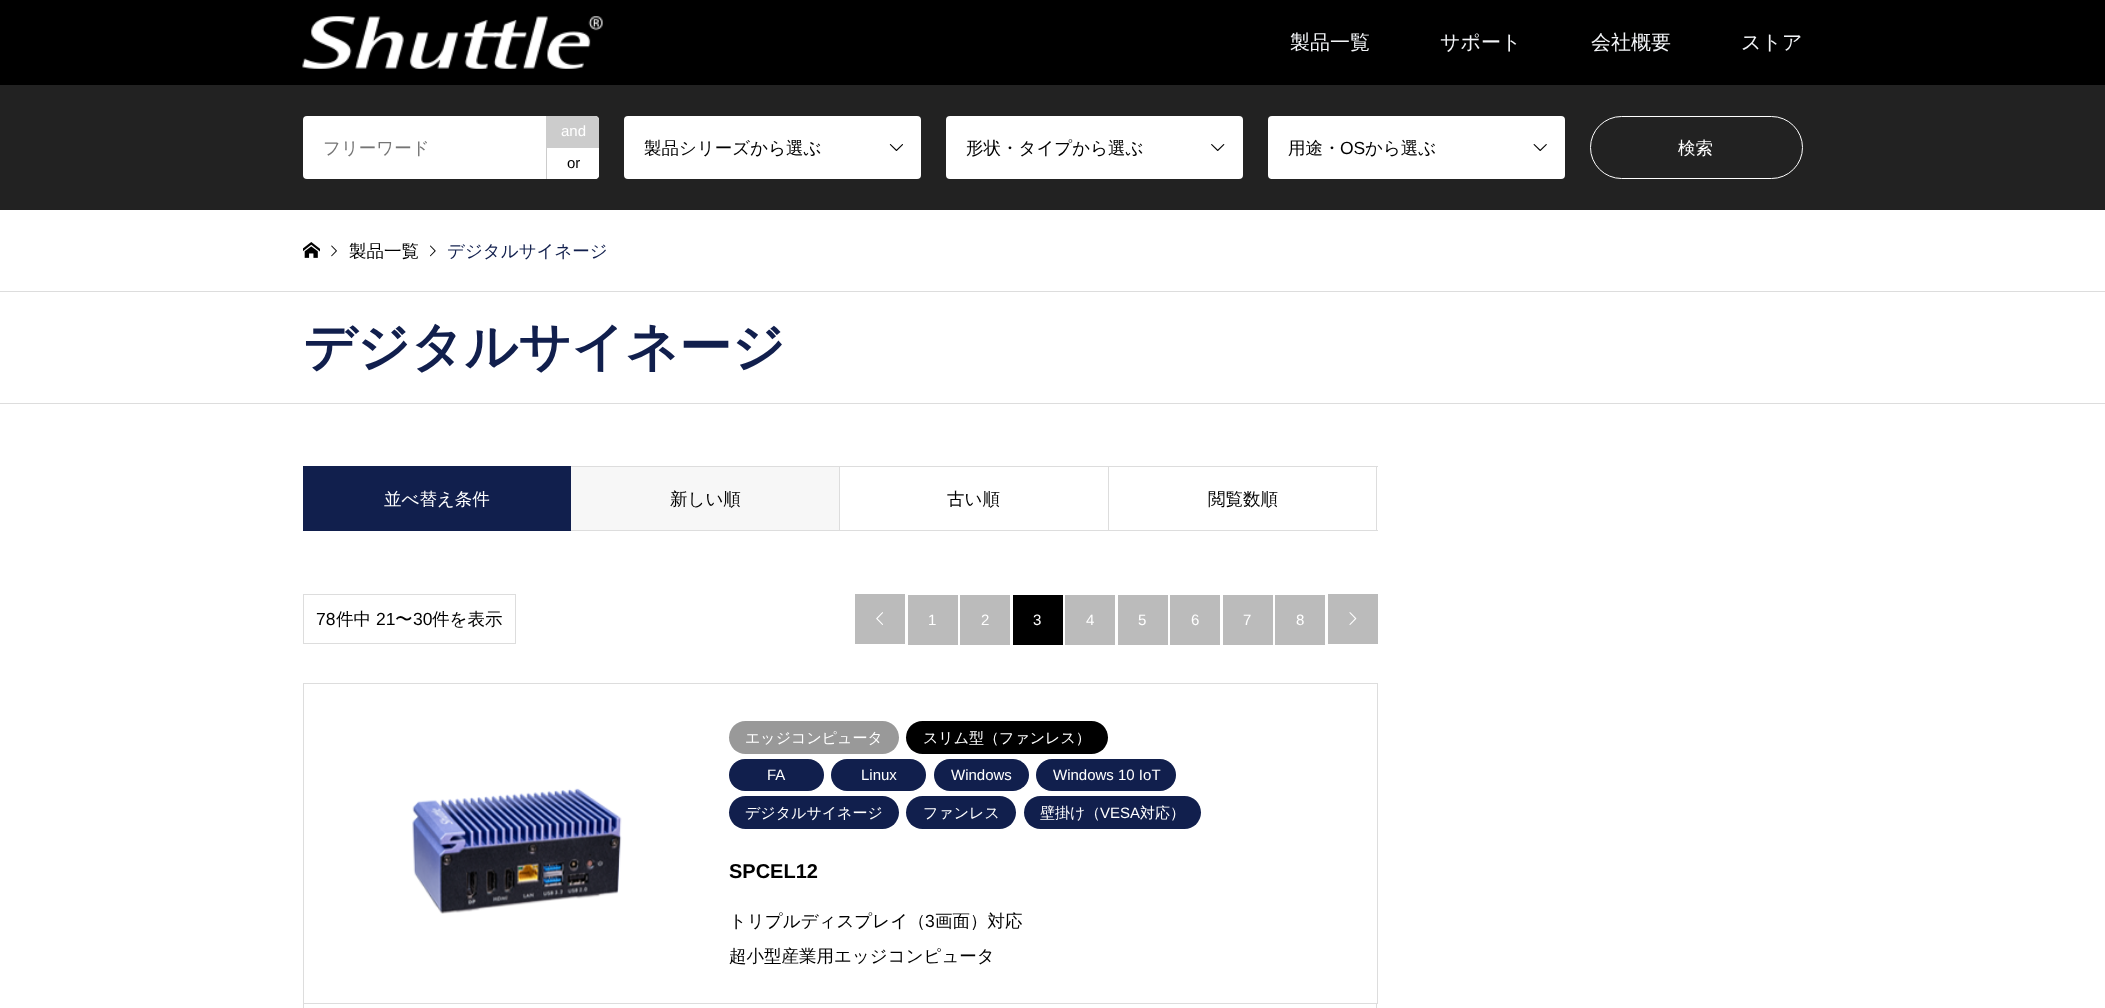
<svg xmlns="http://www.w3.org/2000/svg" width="2105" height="1008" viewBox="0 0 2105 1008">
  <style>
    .t1 { font: 500 20px WenQuanYi Zen Hei; fill: #f2f4f7; }
    .t2 { font: 500 17.5px WenQuanYi Zen Hei; fill: #757575; }
    .t3 { font: 15px Liberation Sans; fill: #fff; }
    .t4 { font: 15px Liberation Sans; fill: #000; }
    .t5 { font: 500 17.5px WenQuanYi Zen Hei; fill: #000; }
    .t6 { font: 17.5px Liberation Sans; fill: #000; }
    .t7 { font: 500 17.5px WenQuanYi Zen Hei; fill: #fff; }
    .t8 { font: 500 17.5px WenQuanYi Zen Hei; fill: #111f4d; }
    .t9 { font: bold 52.5px WenQuanYi Zen Hei; fill: #111f4d; }
    .t10 { font: 500 15px WenQuanYi Zen Hei; fill: #fff; }
    .t11 { font: bold 20px Liberation Sans; fill: #000; }
  </style>
  <rect width="100%" height="100%" fill="#fff"/>
  <rect x="0" y="0" width="2105" height="85" fill="#000"/>
  <image x="302" y="16" width="301" height="53" href="images/1.png"/>
  <text x="1290" y="49" class="t1">製品一覧</text>
  <text x="1440" y="49" class="t1">サポート</text>
  <text x="1591" y="49" class="t1">会社概要</text>
  <text x="1741" y="49" class="t1">ストア</text>
  <rect x="0" y="85" width="2105" height="125" fill="#222"/>
  <rect x="303" y="116" width="296" height="63" rx="4" fill="#fff"/>
  <text x="323" y="154" class="t2">フリーワード</text>
  <path d="M546 116H595C597 116 599 118 599 120V148H546Z" fill="#ccc"/>
  <text x="561" y="136" class="t3">and</text>
  <path d="M546 148H599V175C599 177 597 179 595 179H546Z" fill="#fff"/>
  <rect x="546" y="148" width="1" height="31" fill="#ccc"/>
  <text x="567" y="168" class="t4">or</text>
  <rect x="624" y="116" width="297" height="63" rx="4" fill="#fff"/>
  <text x="644" y="154" class="t5">製品シリーズから選ぶ</text>
  <image x="889" y="144" width="14" height="7" href="images/2.png"/>
  <rect x="946" y="116" width="297" height="63" rx="4" fill="#fff"/>
  <text x="966" y="154" class="t5">形状・タイプから選ぶ</text>
  <image x="1211" y="144" width="14" height="7" href="images/3.png"/>
  <rect x="1268" y="116" width="297" height="63" rx="4" fill="#fff"/>
  <text x="1288" y="154" class="t5">用途・</text>
  <text x="1340" y="154" class="t6">OS</text>
  <text x="1365" y="154" class="t5">から選ぶ</text>
  <image x="1533" y="144" width="14" height="7" href="images/4.png"/>
  <rect x="1590.5" y="116.5" width="212" height="62" rx="31" fill="none" stroke="#fff"/>
  <text x="1678" y="154" class="t7">検索</text>
  <rect x="0" y="291" width="2105" height="1" fill="#ddd"/>
  <image x="303" y="242" width="17" height="16" href="images/5.png"/>
  <image x="331" y="245" width="6" height="12" href="images/6.png"/>
  <text x="349" y="257" class="t5">製品一覧</text>
  <image x="430" y="245" width="6" height="12" href="images/7.png"/>
  <text x="447" y="257" class="t8">デジタルサイネージ</text>
  <rect x="0" y="403" width="2105" height="1" fill="#ddd"/>
  <text x="303" y="365" class="t9">デジタルサイネージ</text>
  <rect x="303" y="466" width="268" height="65" fill="#111f4d"/>
  <text x="384" y="505" class="t7">並べ替え条件</text>
  <rect x="571" y="467" width="268" height="63" fill="#f7f7f7"/>
  <rect x="571" y="466" width="807" height="1" fill="#ddd"/>
  <rect x="839" y="466" width="1" height="65" fill="#ddd"/>
  <rect x="571" y="530" width="269" height="1" fill="#ddd"/>
  <text x="670" y="505" class="t5">新しい順</text>
  <rect x="1108" y="466" width="1" height="65" fill="#ddd"/>
  <rect x="840" y="530" width="269" height="1" fill="#ddd"/>
  <text x="947" y="505" class="t5">古い順</text>
  <rect x="1376" y="466" width="1" height="65" fill="#ddd"/>
  <rect x="1109" y="530" width="269" height="1" fill="#ddd"/>
  <text x="1208" y="505" class="t5">閲覧数順</text>
  <rect x="303.5" y="594.5" width="212" height="49" fill="none" stroke="#ddd"/>
  <text x="316" y="625" class="t6">78</text>
  <text x="336" y="625" class="t5">件中</text>
  <text x="376" y="625" class="t6">21</text>
  <text x="395" y="625" class="t5">〜</text>
  <text x="413" y="625" class="t6">30</text>
  <text x="432" y="625" class="t5">件を表示</text>
  <rect x="855" y="594" width="50" height="50" fill="#bbb"/>
  <image x="876" y="612" width="7" height="13" href="images/8.png"/>
  <rect x="908" y="595" width="50" height="50" fill="#bbb"/>
  <text x="928" y="625" class="t3">1</text>
  <rect x="960" y="595" width="50" height="50" fill="#bbb"/>
  <text x="981" y="625" class="t3">2</text>
  <rect x="1013" y="595" width="50" height="50" fill="#000"/>
  <text x="1033" y="625" class="t3">3</text>
  <rect x="1065" y="595" width="50" height="50" fill="#bbb"/>
  <text x="1086" y="625" class="t3">4</text>
  <rect x="1118" y="595" width="50" height="50" fill="#bbb"/>
  <text x="1138" y="625" class="t3">5</text>
  <rect x="1170" y="595" width="50" height="50" fill="#bbb"/>
  <text x="1191" y="625" class="t3">6</text>
  <rect x="1223" y="595" width="50" height="50" fill="#bbb"/>
  <text x="1243" y="625" class="t3">7</text>
  <rect x="1275" y="595" width="50" height="50" fill="#bbb"/>
  <text x="1296" y="625" class="t3">8</text>
  <rect x="1328" y="594" width="50" height="50" fill="#bbb"/>
  <image x="1349" y="612" width="8" height="13" href="images/9.png"/>
  <rect x="303.5" y="683.5" width="1074" height="320" fill="none" stroke="#ddd"/>
  <image x="412" y="788" width="210" height="126" href="images/10.png"/>
  <rect x="729" y="721" width="170" height="33" rx="16.5" fill="#999"/>
  <text x="745" y="743" class="t10">エッジコンピュータ</text>
  <rect x="906" y="721" width="202" height="33" rx="16.5" fill="#000"/>
  <text x="923" y="743" class="t10">スリム型（ファンレス）</text>
  <rect x="729" y="759" width="95" height="32" rx="16" fill="#111f4d"/>
  <text x="767" y="780" class="t3">FA</text>
  <rect x="831" y="759" width="95" height="32" rx="16" fill="#111f4d"/>
  <text x="861" y="780" class="t3">Linux</text>
  <rect x="934" y="759" width="95" height="32" rx="16" fill="#111f4d"/>
  <text x="951" y="780" class="t3">Windows</text>
  <rect x="1036" y="759" width="140" height="32" rx="16" fill="#111f4d"/>
  <text x="1053" y="780" class="t3">Windows 10 IoT</text>
  <rect x="729" y="796" width="170" height="33" rx="16.5" fill="#111f4d"/>
  <text x="745" y="818" class="t10">デジタルサイネージ</text>
  <rect x="906" y="796" width="110" height="33" rx="16.5" fill="#111f4d"/>
  <text x="923" y="818" class="t10">ファンレス</text>
  <rect x="1024" y="796" width="177" height="33" rx="16.5" fill="#111f4d"/>
  <text x="1040" y="818" class="t10">壁掛け（</text>
  <text x="1100" y="818" class="t3">VESA</text>
  <text x="1140" y="818" class="t10">対応）</text>
  <text x="729" y="878" class="t11">SPCEL12</text>
  <text x="729" y="927" class="t5">トリプルディスプレイ（</text>
  <text x="925" y="927" class="t6">3</text>
  <text x="935" y="927" class="t5">画面）対応</text>
  <text x="729" y="962" class="t5">超小型産業用エッジコンピュータ</text>
  <rect x="1376" y="1004" width="1" height="4" fill="#ddd"/>
  <rect x="303" y="1004" width="1" height="4" fill="#ddd"/>
</svg>
